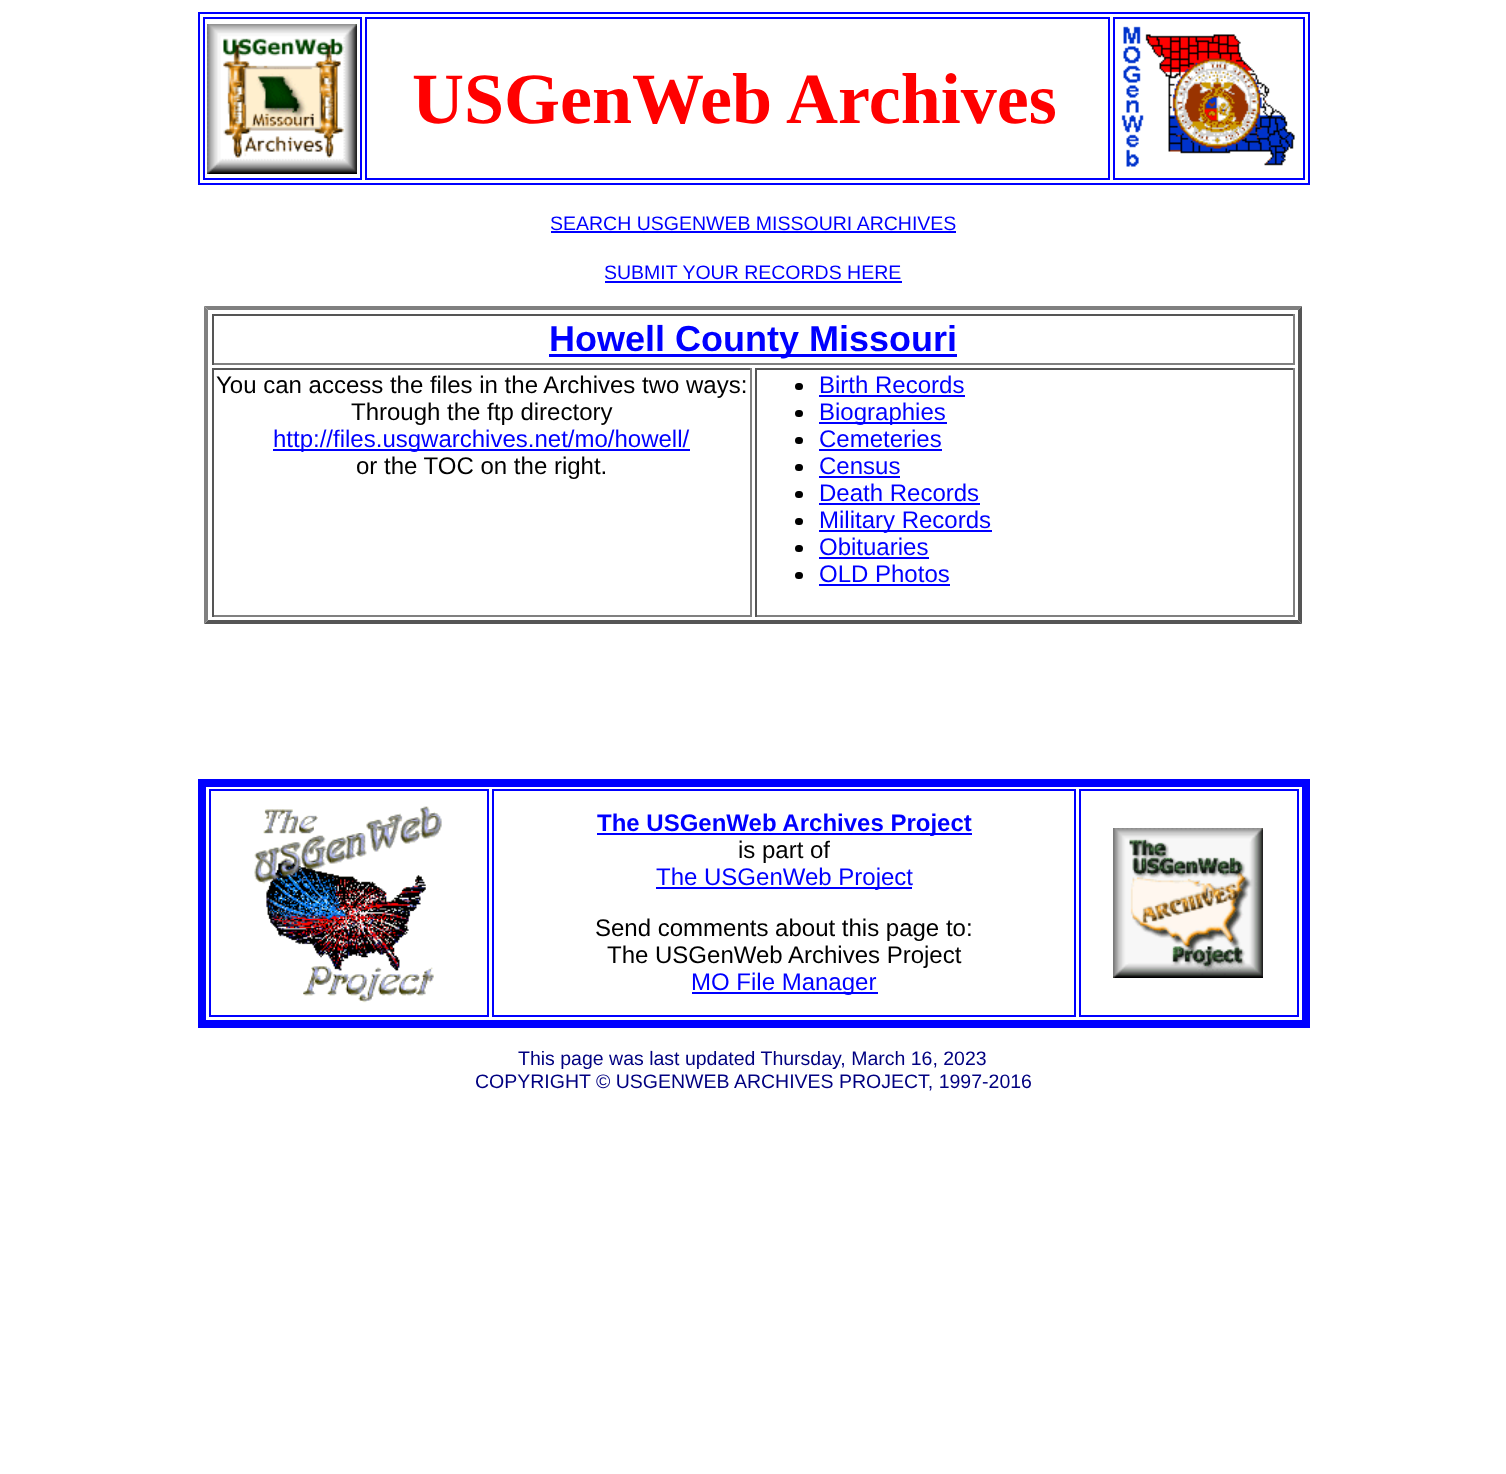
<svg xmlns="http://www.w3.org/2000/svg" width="1506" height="1474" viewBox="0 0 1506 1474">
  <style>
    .t1 { font: bold 72px Liberation Serif; fill: #f00; }
    .t2 { font: 19.5px Liberation Sans; fill: #00f; }
    .t3 { font: bold 36px Liberation Sans; fill: #00f; }
    .t4 { font: 24px Liberation Sans; fill: #000; }
    .t5 { font: 24px Liberation Sans; fill: #00f; }
    .t6 { font: bold 24px Liberation Sans; fill: #00f; }
    .t7 { font: 19.5px Liberation Sans; fill: #000080; }
  </style>
  <rect width="100%" height="100%" fill="#fff"/>
  <rect x="199" y="13" width="1110" height="171" fill="none" stroke="#00f" stroke-width="2"/>
  <rect x="204" y="18" width="157" height="161" fill="none" stroke="#00f" stroke-width="2"/>
  <image x="207" y="24" width="150" height="150" href="images/1.png"/>
  <rect x="366" y="18" width="743" height="161" fill="none" stroke="#00f" stroke-width="2"/>
  <text x="412" y="123" class="t1">USGenWeb Archives</text>
  <rect x="1114" y="18" width="190" height="161" fill="none" stroke="#00f" stroke-width="2"/>
  <image x="1121" y="26" width="174" height="141" href="images/2.png"/>
  <text x="550" y="230" class="t2">SEARCH USGENWEB MISSOURI ARCHIVES</text>
  <rect x="551" y="231" width="405" height="2" fill="#00f"/>
  <text x="604" y="279" class="t2">SUBMIT YOUR RECORDS HERE</text>
  <rect x="605" y="281" width="297" height="2" fill="#00f"/>
  <path d="M204 306H1302L1298 310H208Z" fill="#808080"/>
  <path d="M1302 306V624L1298 620V310Z" fill="#555"/>
  <path d="M1302 624H204L208 620H1298Z" fill="#555"/>
  <path d="M204 624V306L208 310V620Z" fill="#808080"/>
  <rect x="212" y="314" width="1083" height="2" fill="#555"/>
  <rect x="1293" y="314" width="2" height="51" fill="#808080"/>
  <rect x="212" y="363" width="1083" height="2" fill="#808080"/>
  <rect x="212" y="314" width="2" height="51" fill="#555"/>
  <rect x="549" y="354" width="408" height="3" fill="#00f"/>
  <text x="549" y="351" class="t3">Howell County Missouri</text>
  <rect x="212" y="368" width="540" height="2" fill="#555"/>
  <rect x="750" y="368" width="2" height="249" fill="#808080"/>
  <rect x="212" y="615" width="540" height="2" fill="#808080"/>
  <rect x="212" y="368" width="2" height="249" fill="#555"/>
  <text x="216" y="393" class="t4">You can access the files in the Archives two ways:</text>
  <text x="351" y="420" class="t4">Through the ftp directory</text>
  <rect x="273" y="449" width="417" height="2" fill="#00f"/>
  <text x="273" y="447" class="t5">http://files.usgwarchives.net/mo/howell/</text>
  <text x="356" y="474" class="t4">or the TOC on the right.</text>
  <rect x="755" y="368" width="540" height="2" fill="#555"/>
  <rect x="1293" y="368" width="2" height="249" fill="#808080"/>
  <rect x="755" y="615" width="540" height="2" fill="#808080"/>
  <rect x="755" y="368" width="2" height="249" fill="#555"/>
  <rect x="795" y="383" width="8" height="7" rx="3.5" fill="#000"/>
  <text x="819" y="393" class="t5">Birth Records</text>
  <rect x="819" y="395" width="146" height="2" fill="#00f"/>
  <rect x="795" y="410" width="8" height="7" rx="3.5" fill="#000"/>
  <rect x="819" y="422" width="128" height="2" fill="#00f"/>
  <text x="819" y="420" class="t5">Biographies</text>
  <rect x="795" y="437" width="8" height="7" rx="3.5" fill="#000"/>
  <text x="819" y="447" class="t5">Cemeteries</text>
  <rect x="819" y="449" width="123" height="2" fill="#00f"/>
  <rect x="795" y="464" width="8" height="7" rx="3.5" fill="#000"/>
  <text x="819" y="474" class="t5">Census</text>
  <rect x="819" y="476" width="81" height="2" fill="#00f"/>
  <rect x="795" y="491" width="8" height="7" rx="3.5" fill="#000"/>
  <text x="819" y="501" class="t5">Death Records</text>
  <rect x="819" y="503" width="161" height="2" fill="#00f"/>
  <rect x="795" y="518" width="8" height="7" rx="3.5" fill="#000"/>
  <rect x="819" y="530" width="173" height="2" fill="#00f"/>
  <text x="819" y="528" class="t5">Military Records</text>
  <rect x="795" y="545" width="8" height="7" rx="3.5" fill="#000"/>
  <text x="819" y="555" class="t5">Obituaries</text>
  <rect x="819" y="557" width="110" height="2" fill="#00f"/>
  <rect x="795" y="572" width="8" height="7" rx="3.5" fill="#000"/>
  <text x="819" y="582" class="t5">OLD Photos</text>
  <rect x="819" y="584" width="131" height="2" fill="#00f"/>
  <rect x="202" y="783" width="1104" height="241" fill="none" stroke="#00f" stroke-width="8"/>
  <rect x="210" y="790" width="278" height="226" fill="none" stroke="#00f" stroke-width="2"/>
  <image x="254" y="806" width="188" height="197" href="images/3.png"/>
  <rect x="493" y="790" width="582" height="226" fill="none" stroke="#00f" stroke-width="2"/>
  <rect x="597" y="833" width="375" height="2" fill="#00f"/>
  <text x="597" y="831" class="t6">The USGenWeb Archives Project</text>
  <text x="738" y="858" class="t4">is part of</text>
  <rect x="656" y="887" width="256" height="2" fill="#00f"/>
  <text x="656" y="885" class="t5">The USGenWeb Project</text>
  <text x="595" y="936" class="t4">Send comments about this page to:</text>
  <text x="607" y="963" class="t4">The USGenWeb Archives Project</text>
  <rect x="692" y="992" width="186" height="2" fill="#00f"/>
  <text x="691" y="990" class="t5">MO File Manager</text>
  <rect x="1080" y="790" width="218" height="226" fill="none" stroke="#00f" stroke-width="2"/>
  <image x="1113" y="828" width="150" height="150" href="images/4.png"/>
  <text x="518" y="1065" class="t7">This page was last updated Thursday, March 16, 2023</text>
  <text x="475" y="1088" class="t7">COPYRIGHT © USGENWEB ARCHIVES PROJECT, 1997-2016</text>
</svg>
